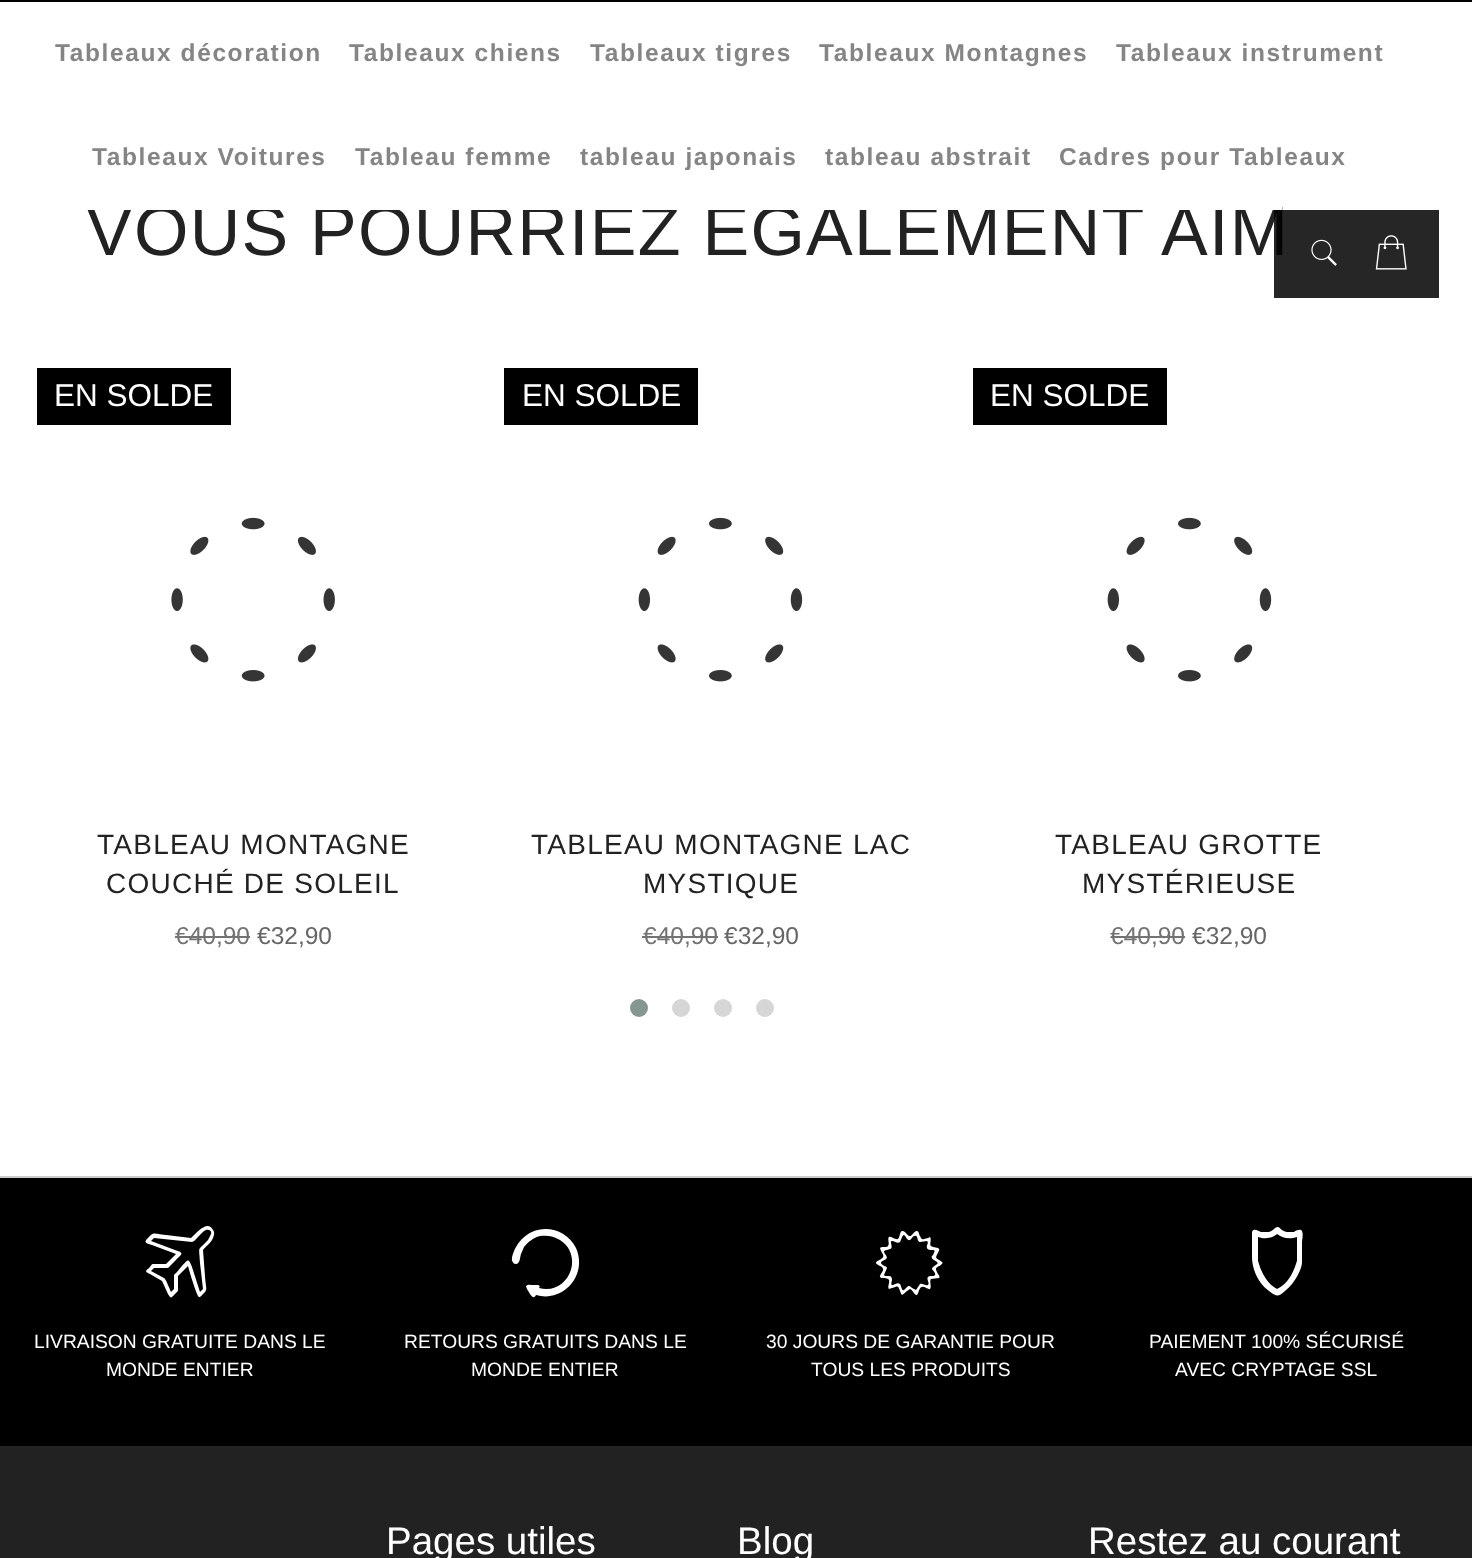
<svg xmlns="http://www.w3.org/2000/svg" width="1472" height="1558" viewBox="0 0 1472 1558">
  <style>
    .t1 { font: 70px Liberation Sans; letter-spacing: 1.25px; fill: #222; }
    .t2 { font: bold 24.5px Liberation Sans; letter-spacing: 1.6px; fill: #858585; }
    .t3 { font: 31.5px Liberation Sans; fill: #fff; }
    .t4 { font: 28px Liberation Sans; letter-spacing: 1.25px; fill: #222; }
    .t5 { font: 24.5px Liberation Sans; fill: #737373; }
    .t6 { font: 24.5px Liberation Sans; fill: #666; }
    .t7 { font: 19.25px Liberation Sans; fill: #fff; }
    .t8 { font: 38.5px Liberation Sans; fill: #fff; }
  </style>
  <rect width="100%" height="100%" fill="#fff"/>
  <text x="86" y="255" class="t1">VOUS POURRIEZ ÉGALEMENT AIM</text>
  <rect x="86" y="194" width="1196" height="16" fill="#fff"/>
  <rect x="0" y="0" width="1472" height="2" fill="#000"/>
  <text x="55" y="61" class="t2">Tableaux décoration</text>
  <text x="349" y="61" class="t2">Tableaux chiens</text>
  <text x="590" y="61" class="t2">Tableaux tigres</text>
  <text x="819" y="61" class="t2">Tableaux Montagnes</text>
  <text x="1116" y="61" class="t2">Tableaux instrument</text>
  <text x="92" y="165" class="t2">Tableaux Voitures</text>
  <text x="355" y="165" class="t2">Tableau femme</text>
  <text x="580" y="165" class="t2">tableau japonais</text>
  <text x="825" y="165" class="t2">tableau abstrait</text>
  <text x="1059" y="165" class="t2">Cadres pour Tableaux</text>
  <rect x="1274" y="210" width="165" height="88" fill="#000000d9"/>
  <image x="1311" y="239" width="26" height="27" href="images/1.png"/>
  <image x="1375" y="235" width="32" height="35" href="images/2.png"/>
  <rect x="37" y="368" width="194" height="57" fill="#000"/>
  <text x="54" y="406" class="t3">EN SOLDE</text>
  <image x="171" y="517" width="164" height="165" href="images/3.png"/>
  <text x="97" y="854" class="t4">TABLEAU MONTAGNE</text>
  <text x="106" y="893" class="t4">COUCHÉ DE SOLEIL</text>
  <text x="175" y="944" class="t5">€40,90</text>
  <rect x="175" y="936" width="75" height="2" fill="#737373"/>
  <text x="257" y="944" class="t6">€32,90</text>
  <rect x="504" y="368" width="194" height="57" fill="#000"/>
  <text x="522" y="406" class="t3">EN SOLDE</text>
  <image x="638" y="517" width="165" height="165" href="images/4.png"/>
  <text x="531" y="854" class="t4">TABLEAU MONTAGNE LAC</text>
  <text x="643" y="893" class="t4">MYSTIQUE</text>
  <text x="643" y="944" class="t5">€40,90</text>
  <rect x="642" y="936" width="76" height="2" fill="#737373"/>
  <text x="724" y="944" class="t6">€32,90</text>
  <rect x="973" y="368" width="194" height="57" fill="#000"/>
  <text x="990" y="406" class="t3">EN SOLDE</text>
  <image x="1107" y="517" width="165" height="165" href="images/4.png"/>
  <text x="1055" y="854" class="t4">TABLEAU GROTTE</text>
  <text x="1082" y="893" class="t4">MYSTÉRIEUSE</text>
  <text x="1110" y="944" class="t5">€40,90</text>
  <rect x="1111" y="936" width="74" height="2" fill="#737373"/>
  <text x="1192" y="944" class="t6">€32,90</text>
  <circle cx="639" cy="1008" r="9" fill="#869791"/>
  <circle cx="681" cy="1008" r="9" fill="#d6d6d6"/>
  <circle cx="723" cy="1008" r="9" fill="#d6d6d6"/>
  <circle cx="765" cy="1008" r="9" fill="#d6d6d6"/>
  <rect x="0" y="1178" width="1472" height="268" fill="#000"/>
  <rect x="0" y="1176" width="1472" height="2" fill="#ccc"/>
  <path d="M199 1297H200C209 1288 206 1292 205 1276L203 1250C206 1246 211 1243 213 1238C214 1235 215 1232 213 1230C208 1219 196 1233 191 1238L166 1235C152 1234 155 1231 147 1239C143 1243 148 1244 152 1245L176 1254L166 1264H157C151 1264 153 1263 149 1268C145 1271 145 1272 150 1274L162 1281L168 1294C171 1299 171 1298 175 1294C179 1290 178 1292 178 1285V1276L188 1266C189 1270 197 1297 199 1297ZM151 1271L154 1268H165C169 1268 168 1268 171 1265L175 1261C182 1254 185 1253 175 1250L151 1241L154 1238L192 1242C195 1242 201 1232 206 1230C209 1229 212 1231 211 1234L208 1240C197 1252 199 1244 200 1263L203 1289L200 1292L192 1267C188 1257 188 1260 181 1267L177 1272C174 1275 174 1274 174 1277V1289L171 1292C170 1290 166 1279 164 1278Z" fill="#fff" fill-rule="evenodd"/>
  <text x="34" y="1348" class="t7">LIVRAISON GRATUITE DANS LE</text>
  <text x="106" y="1376" class="t7">MONDE ENTIER</text>
  <path d="M576 1248C588 1275 563 1303 536 1295C534 1299 532 1297 530 1294C529 1292 526 1288 526 1286C528 1284 531 1285 533 1285C535 1285 542 1284 539 1288C568 1296 585 1256 560 1240C554 1236 547 1235 540 1236C533 1238 528 1242 524 1247L521 1254C520 1257 520 1264 516 1264C514 1264 513 1263 513 1262L512 1261C511 1255 517 1244 521 1240C537 1222 566 1227 576 1248Z" fill="#fff"/>
  <text x="404" y="1348" class="t7">RETOURS GRATUITS DANS LE</text>
  <text x="471" y="1376" class="t7">MONDE ENTIER</text>
  <path d="M942 1262C937 1258 934 1259 938 1253C938 1252 940 1250 939 1249C939 1247 933 1248 931 1246C929 1245 932 1239 930 1237L928 1238C923 1239 922 1241 920 1236C919 1235 919 1231 917 1231C915 1230 912 1236 910 1236C907 1236 905 1230 902 1231C900 1231 900 1237 898 1239C895 1240 891 1236 889 1237C887 1238 890 1244 888 1246C887 1248 881 1246 880 1248L881 1251C883 1255 885 1256 881 1259C880 1260 876 1261 876 1263C876 1265 883 1266 883 1269C884 1271 879 1275 880 1277C881 1279 887 1277 889 1280C890 1282 887 1288 889 1289L892 1288C898 1286 898 1285 900 1291C902 1297 902 1295 907 1291L910 1289C912 1289 915 1296 917 1295C919 1293 919 1287 922 1287C924 1286 929 1290 930 1289C932 1287 929 1281 931 1279L939 1278C941 1277 937 1273 937 1272C935 1268 936 1268 939 1266C940 1266 944 1263 942 1262ZM937 1264C936 1265 932 1267 932 1269C933 1271 936 1273 935 1275C934 1277 929 1275 928 1277C926 1279 930 1283 928 1285C926 1286 922 1283 920 1284L916 1290L912 1288C908 1284 908 1287 904 1290C902 1292 901 1285 900 1284C898 1282 895 1284 893 1285C890 1286 892 1281 892 1280C892 1273 886 1278 884 1275L887 1268C887 1266 882 1266 881 1263C881 1261 885 1260 886 1259C890 1256 879 1251 887 1250L890 1249C894 1248 889 1241 892 1241C894 1241 898 1244 900 1242C901 1241 902 1235 904 1235C906 1236 907 1241 910 1240C912 1239 913 1235 916 1236C918 1236 917 1242 920 1242L927 1241C930 1243 923 1248 930 1250C936 1250 935 1250 933 1255C932 1256 931 1257 932 1258C932 1260 940 1262 937 1264Z" fill="#fff" fill-rule="evenodd"/>
  <text x="766" y="1348" class="t7">30 JOURS DE GARANTIE POUR</text>
  <text x="811" y="1376" class="t7">TOUS LES PRODUITS</text>
  <path d="M1301 1230C1304 1232 1302 1240 1302 1242V1262C1302 1271 1292 1286 1285 1291C1278 1297 1277 1297 1269 1291C1259 1284 1252 1270 1252 1257V1233C1252 1227 1259 1231 1261 1232H1265C1273 1233 1275 1226 1278 1227C1280 1227 1281 1231 1287 1232C1289 1232 1291 1232 1294 1232C1295 1231 1299 1229 1301 1230ZM1297 1261V1237C1288 1240 1281 1237 1277 1234C1274 1237 1267 1240 1258 1237V1261C1259 1263 1263 1282 1277 1289C1292 1282 1296 1263 1297 1261Z" fill="#fff" fill-rule="evenodd"/>
  <text x="1149" y="1348" class="t7">PAIEMENT 100% SÉCURISÉ</text>
  <text x="1175" y="1376" class="t7">AVEC CRYPTAGE SSL</text>
  <rect x="0" y="1446" width="1472" height="112" fill="#222"/>
  <text x="386" y="1554" class="t8">Pages utiles</text>
  <text x="737" y="1554" class="t8">Blog</text>
  <text x="1088" y="1554" class="t8">Restez au courant</text>
</svg>
